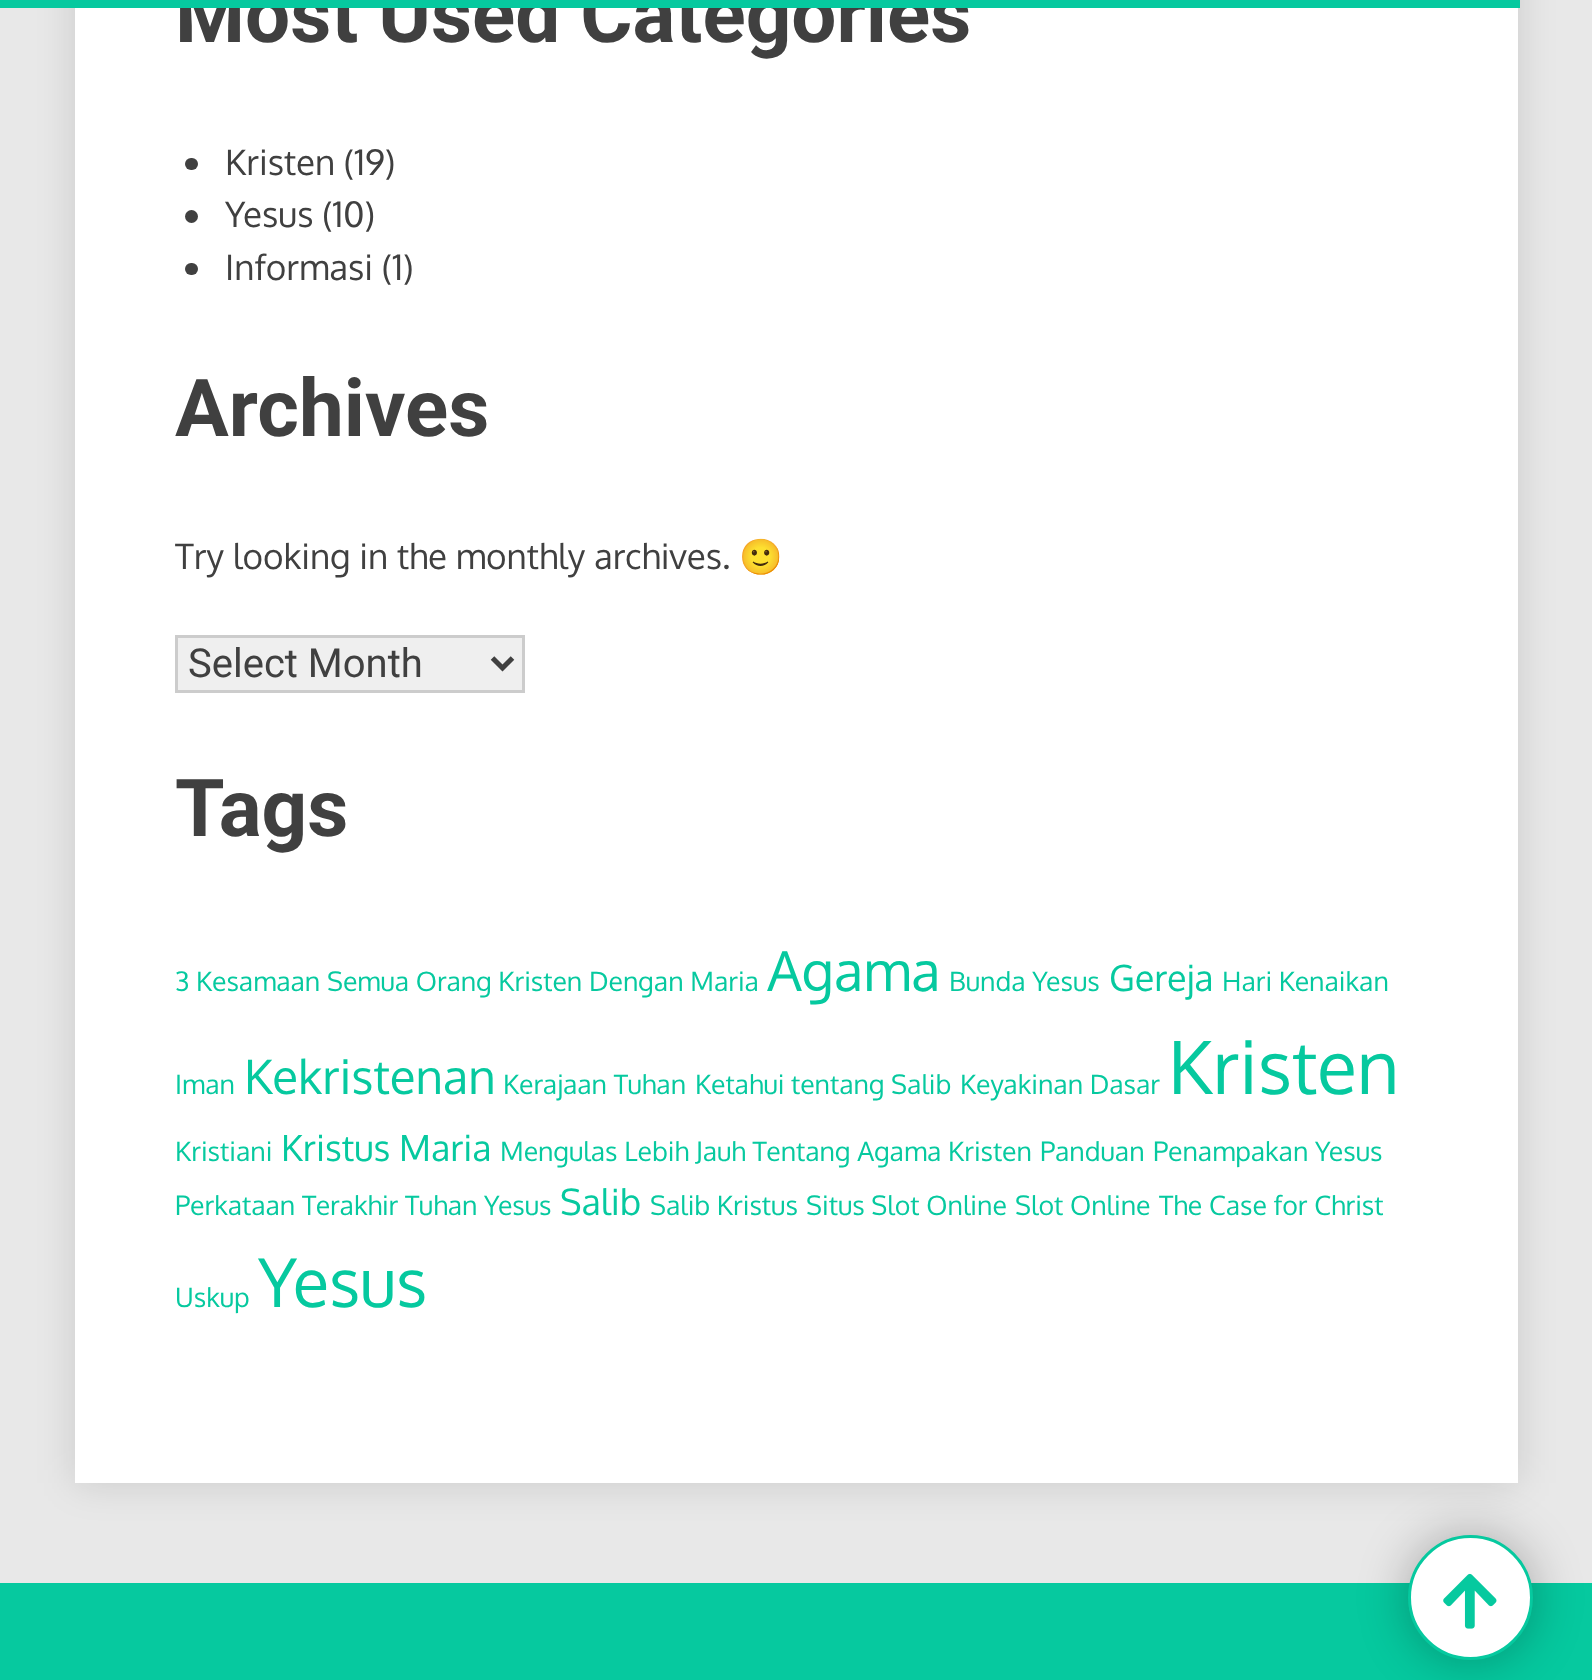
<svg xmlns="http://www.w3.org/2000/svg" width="1592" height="1680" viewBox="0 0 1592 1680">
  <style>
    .t1 { font: bold 80px Roboto; fill: #404040; }
    .t2 { font: 35px Oxygen; fill: #404040; }
    .t3 { font: 35px Noto Color Emoji; fill: #404040; }
    .t4 { font: 40px Roboto; fill: #404040; }
    .t5 { font: 26.7px Oxygen; fill: #06c99f; }
    .t6 { font: 55px Oxygen; fill: #06c99f; }
    .t7 { font: 36px Oxygen; fill: #06c99f; }
    .t8 { font: 47.5px Oxygen; fill: #06c99f; }
    .t9 { font: 73.5px Oxygen; fill: #06c99f; }
    .t10 { font: 67px Oxygen; fill: #06c99f; }
  </style>
  <rect width="100%" height="100%" fill="#e8e8e8"/>
  <rect x="75" y="-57" width="1443" height="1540" fill="#00000021" filter="blur(19px)"/>
  <rect x="75" y="8" width="1443" height="1475" fill="#fff"/>
  <text x="175" y="42" class="t1">Most Used Categories</text>
  <rect x="0" y="0" width="1520" height="8" fill="#06c99f"/>
  <rect x="185" y="158" width="13" height="12" rx="6" fill="#404040"/>
  <text x="225" y="175" class="t2">Kristen (19)</text>
  <circle cx="191.5" cy="216.5" r="6.5" fill="#404040"/>
  <text x="225" y="227" class="t2">Yesus (10)</text>
  <rect x="185" y="263" width="13" height="12" rx="6" fill="#404040"/>
  <text x="225" y="280" class="t2">Informasi (1)</text>
  <text x="175" y="436" class="t1">Archives</text>
  <text x="175" y="569" class="t2">Try looking in the monthly archives.</text>
  <text x="739" y="569" class="t3">🙂</text>
  <rect x="176.5" y="636.5" width="347" height="55" fill="#efefef" stroke="#ccc" stroke-width="3"/>
  <path d="M492.5 658L502.5 668L512.5 658" fill="none" stroke="#404040" stroke-width="5"/>
  <text x="188" y="677" class="t4">Select Month</text>
  <text x="175" y="836" class="t1">Tags</text>
  <text x="175" y="991" class="t5">3 Kesamaan Semua Orang Kristen Dengan Maria</text>
  <text x="767" y="991" class="t6">Agama</text>
  <text x="949" y="991" class="t5">Bunda Yesus</text>
  <text x="1109" y="991" class="t7">Gereja</text>
  <text x="1222" y="991" class="t5">Hari Kenaikan</text>
  <text x="175" y="1094" class="t5">Iman</text>
  <text x="244" y="1094" class="t8">Kekristenan</text>
  <text x="503" y="1094" class="t5">Kerajaan Tuhan</text>
  <text x="695" y="1094" class="t5">Ketahui tentang Salib</text>
  <text x="960" y="1094" class="t5">Keyakinan Dasar</text>
  <text x="1168" y="1094" class="t9">Kristen</text>
  <text x="175" y="1161" class="t5">Kristiani</text>
  <text x="281" y="1161" class="t7">Kristus</text>
  <text x="399" y="1161" class="t7">Maria</text>
  <text x="500" y="1161" class="t5">Mengulas Lebih Jauh Tentang Agama Kristen</text>
  <text x="1040" y="1161" class="t5">Panduan</text>
  <text x="1153" y="1161" class="t5">Penampakan Yesus</text>
  <text x="175" y="1215" class="t5">Perkataan Terakhir Tuhan Yesus</text>
  <text x="560" y="1215" class="t7">Salib</text>
  <text x="650" y="1215" class="t5">Salib Kristus</text>
  <text x="806" y="1215" class="t5">Situs Slot Online</text>
  <text x="1015" y="1215" class="t5">Slot Online</text>
  <text x="1159" y="1215" class="t5">The Case for Christ</text>
  <text x="175" y="1307" class="t5">Uskup</text>
  <text x="258" y="1307" class="t10">Yesus</text>
  <rect x="0" y="1583" width="1592" height="97" fill="#06c99f"/>
  <rect x="1408" y="1535" width="125" height="125" rx="62.5" fill="#00000047" filter="blur(25px)"/>
  <circle cx="1470.5" cy="1597.5" r="61" fill="#fff" stroke="#06c99f" stroke-width="3"/>
  <image x="1443" y="1573" width="54" height="56" href="images/1.png"/>
</svg>
